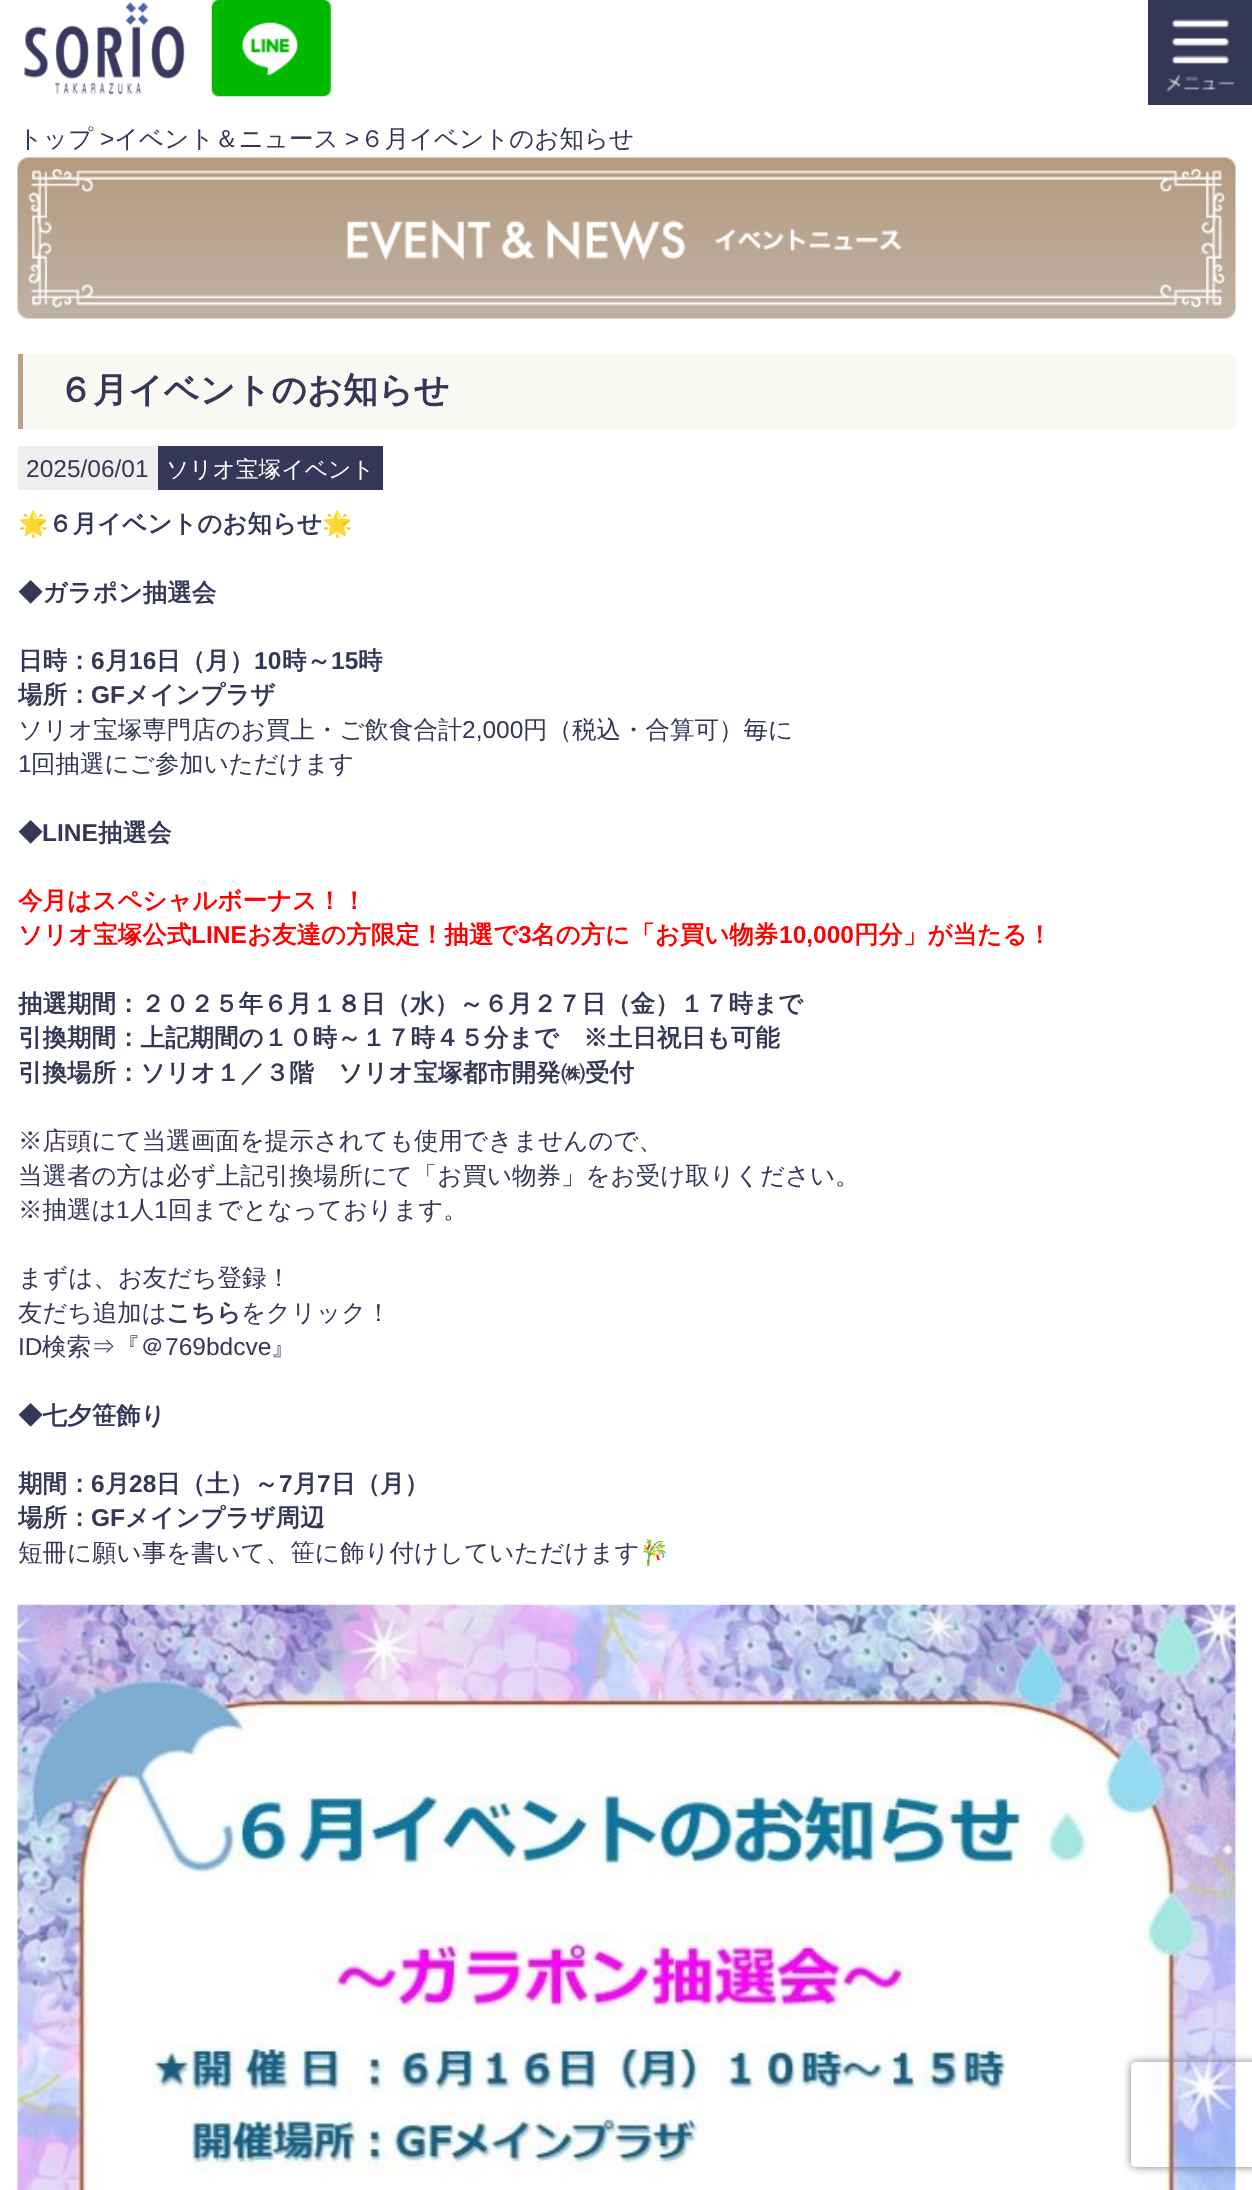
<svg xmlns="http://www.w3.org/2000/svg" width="1252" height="2190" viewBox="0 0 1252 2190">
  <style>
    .t1 { font: 500 24.5px WenQuanYi Zen Hei; fill: #353757; }
    .t2 { font: 24.5px Liberation Sans; fill: #353757; }
    .t3 { font: bold 35px WenQuanYi Zen Hei; fill: #353757; }
    .t4 { font: 500 22.75px WenQuanYi Zen Hei; fill: #fff; }
    .t5 { font: bold 24.5px Noto Color Emoji; fill: #353757; }
    .t6 { font: bold 24.5px WenQuanYi Zen Hei; fill: #353757; }
    .t7 { font: bold 24.5px Liberation Sans; fill: #353757; }
    .t8 { font: bold 24.5px WenQuanYi Zen Hei; fill: #f00; }
    .t9 { font: bold 24.5px Liberation Sans; fill: #f00; }
    .t10 { font: 24.5px Noto Color Emoji; fill: #353757; }
  </style>
  <defs>
    <clipPath id="clip1"><path d="M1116 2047H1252V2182H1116ZM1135 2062H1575C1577 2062 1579 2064 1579 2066V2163C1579 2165 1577 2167 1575 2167H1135C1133 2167 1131 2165 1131 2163V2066C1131 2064 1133 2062 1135 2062Z" clip-rule="evenodd"/></clipPath>
  </defs>
  <rect width="100%" height="100%" fill="#fff"/>
  <image x="24" y="2" width="161" height="93" href="images/1.png"/>
  <image x="211" y="0" width="120" height="97" href="images/2.png"/>
  <image x="1148" y="0" width="104" height="105" href="images/3.png"/>
  <text x="18" y="147" class="t1">トップ</text>
  <text x="100" y="147" class="t2">&gt;</text>
  <text x="114" y="147" class="t1">イベント＆ニュース</text>
  <text x="345" y="147" class="t2">&gt;</text>
  <text x="360" y="147" class="t1">６月イベントのお知らせ</text>
  <image x="17" y="157" width="1219" height="162" href="images/4.png"/>
  <rect x="23" y="354" width="1213" height="75" fill="#f9f8f3"/>
  <rect x="18" y="354" width="5" height="75" fill="#bca083"/>
  <text x="58" y="402" class="t3">６月イベントのお知らせ</text>
  <rect x="18" y="446" width="140" height="44" fill="#f0eeee"/>
  <text x="26" y="477" class="t2">2025/06/01</text>
  <rect x="158" y="446" width="225" height="44" fill="#353758"/>
  <text x="166" y="477" class="t4">ソリオ宝塚イベント</text>
  <text x="18" y="532" class="t5">🌟</text>
  <text x="48" y="532" class="t6">６月イベントのお知らせ</text>
  <text x="322" y="532" class="t5">🌟</text>
  <text x="18" y="601" class="t6">◆ガラポン抽選会</text>
  <text x="18" y="669" class="t6">日時：</text>
  <text x="91" y="669" class="t7">6</text>
  <text x="105" y="669" class="t6">月</text>
  <text x="129" y="669" class="t7">16</text>
  <text x="156" y="669" class="t6">日（月）</text>
  <text x="254" y="669" class="t7">10</text>
  <text x="282" y="669" class="t6">時～</text>
  <text x="331" y="669" class="t7">15</text>
  <text x="358" y="669" class="t6">時</text>
  <text x="18" y="703" class="t6">場所：</text>
  <text x="91" y="703" class="t7">GF</text>
  <text x="125" y="703" class="t6">メインプラザ</text>
  <text x="18" y="738" class="t1">ソリオ宝塚専門店のお買上・ご飲食合計</text>
  <text x="462" y="738" class="t2">2,000</text>
  <text x="523" y="738" class="t1">円（税込・合算可）毎に</text>
  <text x="18" y="772" class="t2">1</text>
  <text x="31" y="772" class="t1">回抽選にご参加いただけます</text>
  <text x="18" y="841" class="t6">◆</text>
  <text x="42" y="841" class="t7">LINE</text>
  <text x="98" y="841" class="t6">抽選会</text>
  <text x="18" y="909" class="t8">今月はスペシャルボーナス！！</text>
  <text x="18" y="943" class="t8">ソリオ宝塚公式</text>
  <text x="191" y="943" class="t9">LINE</text>
  <text x="247" y="943" class="t8">お友達の方限定！抽選で</text>
  <text x="518" y="943" class="t9">3</text>
  <text x="531" y="943" class="t8">名の方に「お買い物券</text>
  <text x="779" y="943" class="t9">10,000</text>
  <text x="854" y="943" class="t8">円分」が当たる！</text>
  <text x="18" y="1012" class="t6">抽選期間：２０２５年６月１８日（水）～６月２７日（金）１７時まで</text>
  <text x="18" y="1046" class="t6">引換期間：上記期間の１０時～１７時４５分まで　※土日祝日も可能</text>
  <text x="18" y="1081" class="t6">引換場所：ソリオ１／３階　ソリオ宝塚都市開発㈱受付</text>
  <text x="18" y="1149" class="t1">※店頭にて当選画面を提示されても使用できませんので、</text>
  <text x="18" y="1184" class="t1">当選者の方は必ず上記引換場所にて「お買い物券」をお受け取りください。</text>
  <text x="18" y="1218" class="t1">※抽選は</text>
  <text x="116" y="1218" class="t2">1</text>
  <text x="130" y="1218" class="t1">人</text>
  <text x="154" y="1218" class="t2">1</text>
  <text x="168" y="1218" class="t1">回までとなっております。</text>
  <text x="18" y="1286" class="t1">まずは、お友だち登録！</text>
  <text x="18" y="1321" class="t1">友だち追加は</text>
  <text x="166" y="1321" class="t6">こちら</text>
  <text x="241" y="1321" class="t1">をクリック！</text>
  <text x="18" y="1355" class="t2">ID</text>
  <text x="42" y="1355" class="t1">検索⇒『＠</text>
  <text x="165" y="1355" class="t2">769bdcve</text>
  <text x="271" y="1355" class="t1">』</text>
  <text x="18" y="1424" class="t6">◆七夕笹飾り</text>
  <text x="18" y="1492" class="t6">期間：</text>
  <text x="91" y="1492" class="t7">6</text>
  <text x="105" y="1492" class="t6">月</text>
  <text x="129" y="1492" class="t7">28</text>
  <text x="156" y="1492" class="t6">日（土）～</text>
  <text x="279" y="1492" class="t7">7</text>
  <text x="293" y="1492" class="t6">月</text>
  <text x="317" y="1492" class="t7">7</text>
  <text x="331" y="1492" class="t6">日（月）</text>
  <text x="18" y="1526" class="t6">場所：</text>
  <text x="91" y="1526" class="t7">GF</text>
  <text x="125" y="1526" class="t6">メインプラザ周辺</text>
  <text x="18" y="1561" class="t1">短冊に願い事を書いて、笹に飾り付けしていただけます</text>
  <text x="639" y="1561" class="t10">🎋</text>
  <image x="17" y="1604" width="1219" height="586" href="images/5.png"/>
  <g clip-path="url(#clip1)">
    <rect x="1131" y="2062" width="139" height="105" rx="4" fill="#808080" filter="blur(4.5px)"/>
  </g>
</svg>
